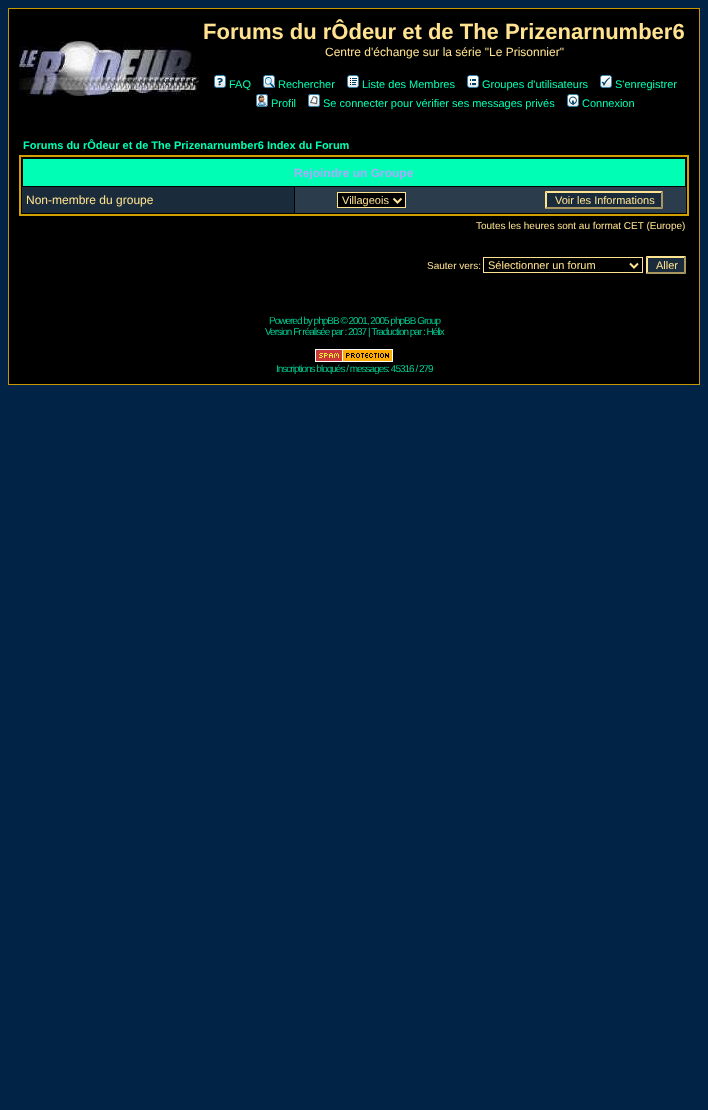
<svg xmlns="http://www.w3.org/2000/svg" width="708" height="1110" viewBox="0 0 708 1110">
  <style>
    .t1 { font: bold 22px Liberation Sans; fill: #ffe390; }
    .t2 { font: 12px Liberation Sans; fill: #ffe390; }
    .t3 { font: 11px Liberation Sans; fill: #00ffb4; }
    .t4 { font: bold 11px Liberation Sans; fill: #00ffb4; }
    .t5 { font: bold 12px Liberation Sans; fill: #aaf; }
    .t6 { font: 11px Liberation Sans; fill: #ffe390; }
    .t7 { font: 10px Liberation Sans; fill: #ffe390; }
    .t8 { font: 10px Liberation Sans; letter-spacing: -1px; fill: #00c88d; }
  </style>
  <rect width="100%" height="100%" fill="#012345"/>
  <rect x="8.5" y="8.5" width="691" height="376" fill="#000" stroke="#c89700"/>
  <image x="19" y="41" width="180" height="55" href="images/1.png"/>
  <text x="203" y="39" class="t1">Forums du rÔdeur et de The Prizenarnumber6</text>
  <text x="325" y="56" class="t2">Centre d'échange sur la série "Le Prisonnier"</text>
  <image x="214" y="75" width="12" height="13" href="images/2.png"/>
  <text x="229" y="88" class="t3">FAQ</text>
  <image x="263" y="75" width="12" height="13" href="images/3.png"/>
  <text x="278" y="88" class="t3">Rechercher</text>
  <image x="347" y="75" width="12" height="13" href="images/4.png"/>
  <text x="362" y="88" class="t3">Liste des Membres</text>
  <image x="467" y="75" width="12" height="13" href="images/5.png"/>
  <text x="482" y="88" class="t3">Groupes d'utilisateurs</text>
  <image x="600" y="75" width="12" height="13" href="images/6.png"/>
  <text x="615" y="88" class="t3">S'enregistrer</text>
  <image x="256" y="94" width="12" height="13" href="images/7.png"/>
  <text x="271" y="107" class="t3">Profil</text>
  <image x="308" y="94" width="12" height="13" href="images/8.png"/>
  <text x="323" y="107" class="t3">Se connecter pour vérifier ses messages privés</text>
  <image x="567" y="94" width="12" height="13" href="images/9.png"/>
  <text x="582" y="107" class="t3">Connexion</text>
  <text x="23" y="149" class="t4">Forums du rÔdeur et de The Prizenarnumber6 Index du Forum</text>
  <rect x="20" y="156" width="668" height="59" fill="none" stroke="#d0a000" stroke-width="2"/>
  <rect x="23" y="159" width="662" height="27" fill="#00ffb4"/>
  <text x="294" y="177" class="t5">Rejoindre un Groupe</text>
  <rect x="22" y="187" width="272" height="26" fill="#1a2b3c"/>
  <text x="26" y="204" class="t2">Non-membre du groupe</text>
  <rect x="295" y="187" width="391" height="26" fill="#2b3c4d"/>
  <rect x="337.5" y="192.5" width="68" height="15" fill="#000" stroke="#ffe390"/>
  <path d="M393.5 198.5L397.5 202.5L401.5 198.5" fill="none" stroke="#ffe390" stroke-width="2"/>
  <text x="342" y="204" class="t6">Villageois</text>
  <rect x="545" y="191" width="118" height="18" fill="#1a2b3c"/>
  <path d="M545 191H663L661 193H547Z" fill="#ffe390"/>
  <path d="M663 191V209L661 207V193Z" fill="#aa9760"/>
  <path d="M663 209H545L547 207H661Z" fill="#aa9760"/>
  <path d="M545 209V191L547 193V207Z" fill="#ffe390"/>
  <text x="555" y="204" class="t6">Voir les Informations</text>
  <text x="476" y="229" class="t7">Toutes les heures sont au format CET (Europe)</text>
  <text x="427" y="269" class="t7">Sauter vers:</text>
  <rect x="483.5" y="257.5" width="159" height="15" fill="none" stroke="#ffe390"/>
  <path d="M630 263.5L634 267.5L638 263.5" fill="none" stroke="#ffe390" stroke-width="2"/>
  <text x="488" y="269" class="t6">Sélectionner un forum</text>
  <rect x="646" y="256" width="40" height="18" fill="#1a2b3c"/>
  <path d="M646 256H686L684 258H648Z" fill="#ffe390"/>
  <path d="M686 256V274L684 272V258Z" fill="#aa9760"/>
  <path d="M686 274H646L648 272H684Z" fill="#aa9760"/>
  <path d="M646 274V256L648 258V272Z" fill="#ffe390"/>
  <text x="656" y="269" class="t6">Aller</text>
  <text x="269" y="324" class="t8">Powered by phpBB © 2001, 2005 phpBB Group</text>
  <text x="265" y="335" class="t8">Version Fr réalisée par : 2037 | Traduction par : Hélix</text>
  <image x="315" y="349" width="78" height="13" href="images/10.png"/>
  <text x="276" y="372" class="t8">Inscriptions bloqués / messages: 45316 / 279</text>
</svg>
